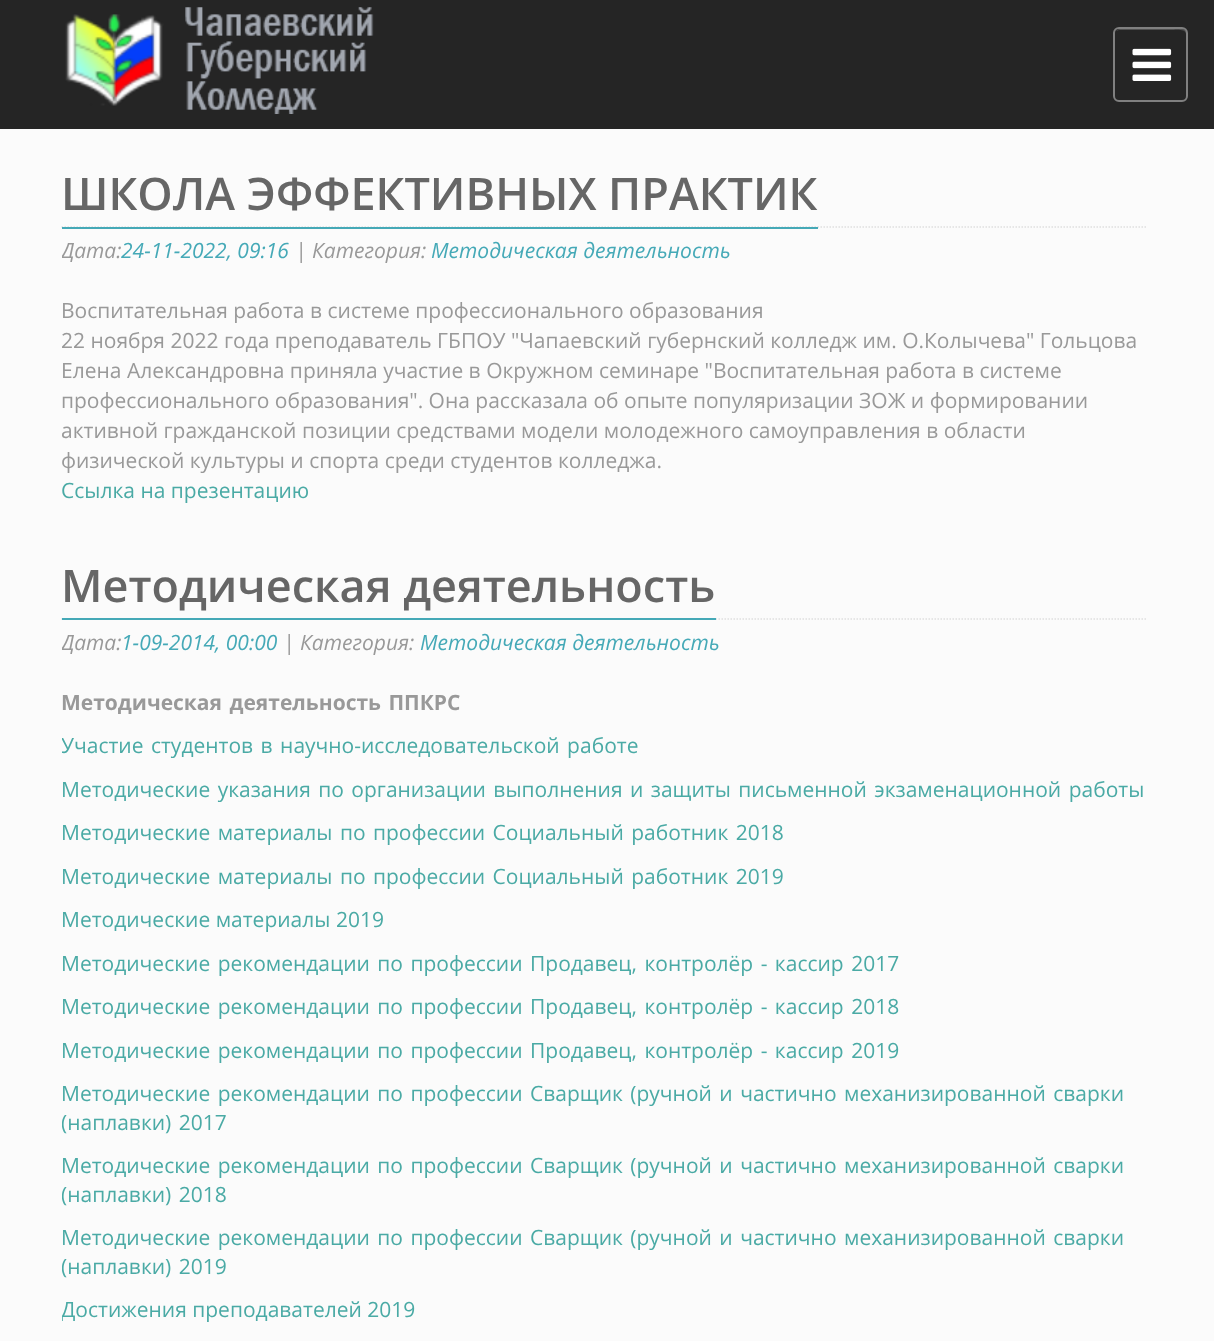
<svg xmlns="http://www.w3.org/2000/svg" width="1214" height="1341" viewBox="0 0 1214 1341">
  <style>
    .t1 { font: 600 45px Open Sans; fill: #666; }
    .t2 { font: italic 21px Open Sans; fill: #999; }
    .t3 { font: italic 21px Open Sans; fill: #45a9b7; }
    .t4 { font: 21px Open Sans; fill: #999; }
    .t5 { font: 21px Open Sans; fill: #4aaaa5; }
    .t6 { font: bold 21px Open Sans; fill: #999; }
  </style>
  <defs>
    <clipPath id="clip1"><rect x="62" y="174" width="1086" height="332"/></clipPath>
    <clipPath id="clip2"><rect x="62" y="566" width="1086" height="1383"/></clipPath>
  </defs>
  <rect width="100%" height="100%" fill="#252525"/>
  <image x="65" y="7" width="309" height="107" href="images/1.png"/>
  <path d="M1119 30H1172C1173 30 1186 28 1186 34V99C1187 98 1187 97 1187 96V34C1187 31 1185 29 1182 29H1120C1118 29 1117 30 1116 31Z" fill="#515151"/>
  <rect x="1114" y="28" width="73" height="73" rx="5" fill="none" stroke="#808080" stroke-width="2"/>
  <image x="1132" y="48" width="40" height="33" href="images/2.png"/>
  <rect x="0" y="129" width="1214" height="1212" fill="#fbfbfb"/>
  <path d="M61.5 227H1147.5" fill="none" stroke="#dfdfdf" stroke-width="1.5" stroke-dasharray="1.5 1.5"/>
  <rect x="62" y="227" width="756" height="2" fill="#45a9b7"/>
  <text x="61" y="210" class="t1">ШКОЛА ЭФФЕКТИВНЫХ ПРАКТИК</text>
  <g clip-path="url(#clip1)">
    <text x="61" y="258" class="t2">Дата:</text>
  </g>
  <text x="121" y="258" class="t3">24-11-2022, 09:16</text>
  <text x="295" y="258" class="t2">| Категория:</text>
  <text x="431" y="258" class="t3">Методическая деятельность</text>
  <text x="61" y="318" class="t4">Воспитательная работа в системе профессионального образования</text>
  <text x="61" y="348" class="t4">22 ноября 2022 года преподаватель ГБПОУ "Чапаевский губернский колледж им. О.Колычева" Гольцова</text>
  <text x="61" y="378" class="t4">Елена Александровна приняла участие в Окружном семинаре "Воспитательная работа в системе</text>
  <text x="61" y="408" class="t4">профессионального образования". Она рассказала об опыте популяризации ЗОЖ и формировании</text>
  <text x="61" y="438" class="t4">активной гражданской позиции средствами модели молодежного самоуправления в области</text>
  <text x="61" y="468" class="t4">физической культуры и спорта среди студентов колледжа.</text>
  <text x="61" y="498" class="t5">Ссылка на презентацию</text>
  <path d="M61.5 619H1147.5" fill="none" stroke="#dfdfdf" stroke-width="1.5" stroke-dasharray="1.5 1.5"/>
  <rect x="62" y="618" width="654" height="2" fill="#45a9b7"/>
  <text x="61" y="602" class="t1">Методическая деятельность</text>
  <g clip-path="url(#clip2)">
    <text x="61" y="650" class="t2">Дата:</text>
  </g>
  <text x="121" y="650" class="t3">1-09-2014, 00:00</text>
  <text x="283" y="650" class="t2">| Категория:</text>
  <text x="420" y="650" class="t3">Методическая деятельность</text>
  <text x="61" y="710" word-spacing="2" class="t6">Методическая деятельность ППКРС</text>
  <g clip-path="url(#clip2)">
    <text x="61" y="753" word-spacing="2" class="t5">Участие студентов в научно-исследовательской работе</text>
  </g>
  <text x="61" y="797" word-spacing="2" class="t5">Методические указания по организации выполнения и защиты письменной экзаменационной работы</text>
  <text x="61" y="840" word-spacing="2" class="t5">Методические материалы по профессии Социальный работник 2018</text>
  <text x="61" y="884" word-spacing="2" class="t5">Методические материалы по профессии Социальный работник 2019</text>
  <text x="61" y="927" class="t5">Методические материалы 2019</text>
  <text x="61" y="971" word-spacing="2" class="t5">Методические рекомендации по профессии Продавец, контролёр - кассир 2017</text>
  <text x="61" y="1014" word-spacing="2" class="t5">Методические рекомендации по профессии Продавец, контролёр - кассир 2018</text>
  <text x="61" y="1058" word-spacing="2" class="t5">Методические рекомендации по профессии Продавец, контролёр - кассир 2019</text>
  <text x="61" y="1101" word-spacing="2" class="t5">Методические рекомендации по профессии Сварщик (ручной и частично механизированной сварки</text>
  <g clip-path="url(#clip2)">
    <text x="61" y="1130" word-spacing="2" class="t5">(наплавки) 2017</text>
  </g>
  <text x="61" y="1173" word-spacing="2" class="t5">Методические рекомендации по профессии Сварщик (ручной и частично механизированной сварки</text>
  <g clip-path="url(#clip2)">
    <text x="61" y="1202" word-spacing="2" class="t5">(наплавки) 2018</text>
  </g>
  <text x="61" y="1245" word-spacing="2" class="t5">Методические рекомендации по профессии Сварщик (ручной и частично механизированной сварки</text>
  <g clip-path="url(#clip2)">
    <text x="61" y="1274" word-spacing="2" class="t5">(наплавки) 2019</text>
    <text x="61" y="1317" class="t5">Достижения преподавателей 2019</text>
  </g>
</svg>
